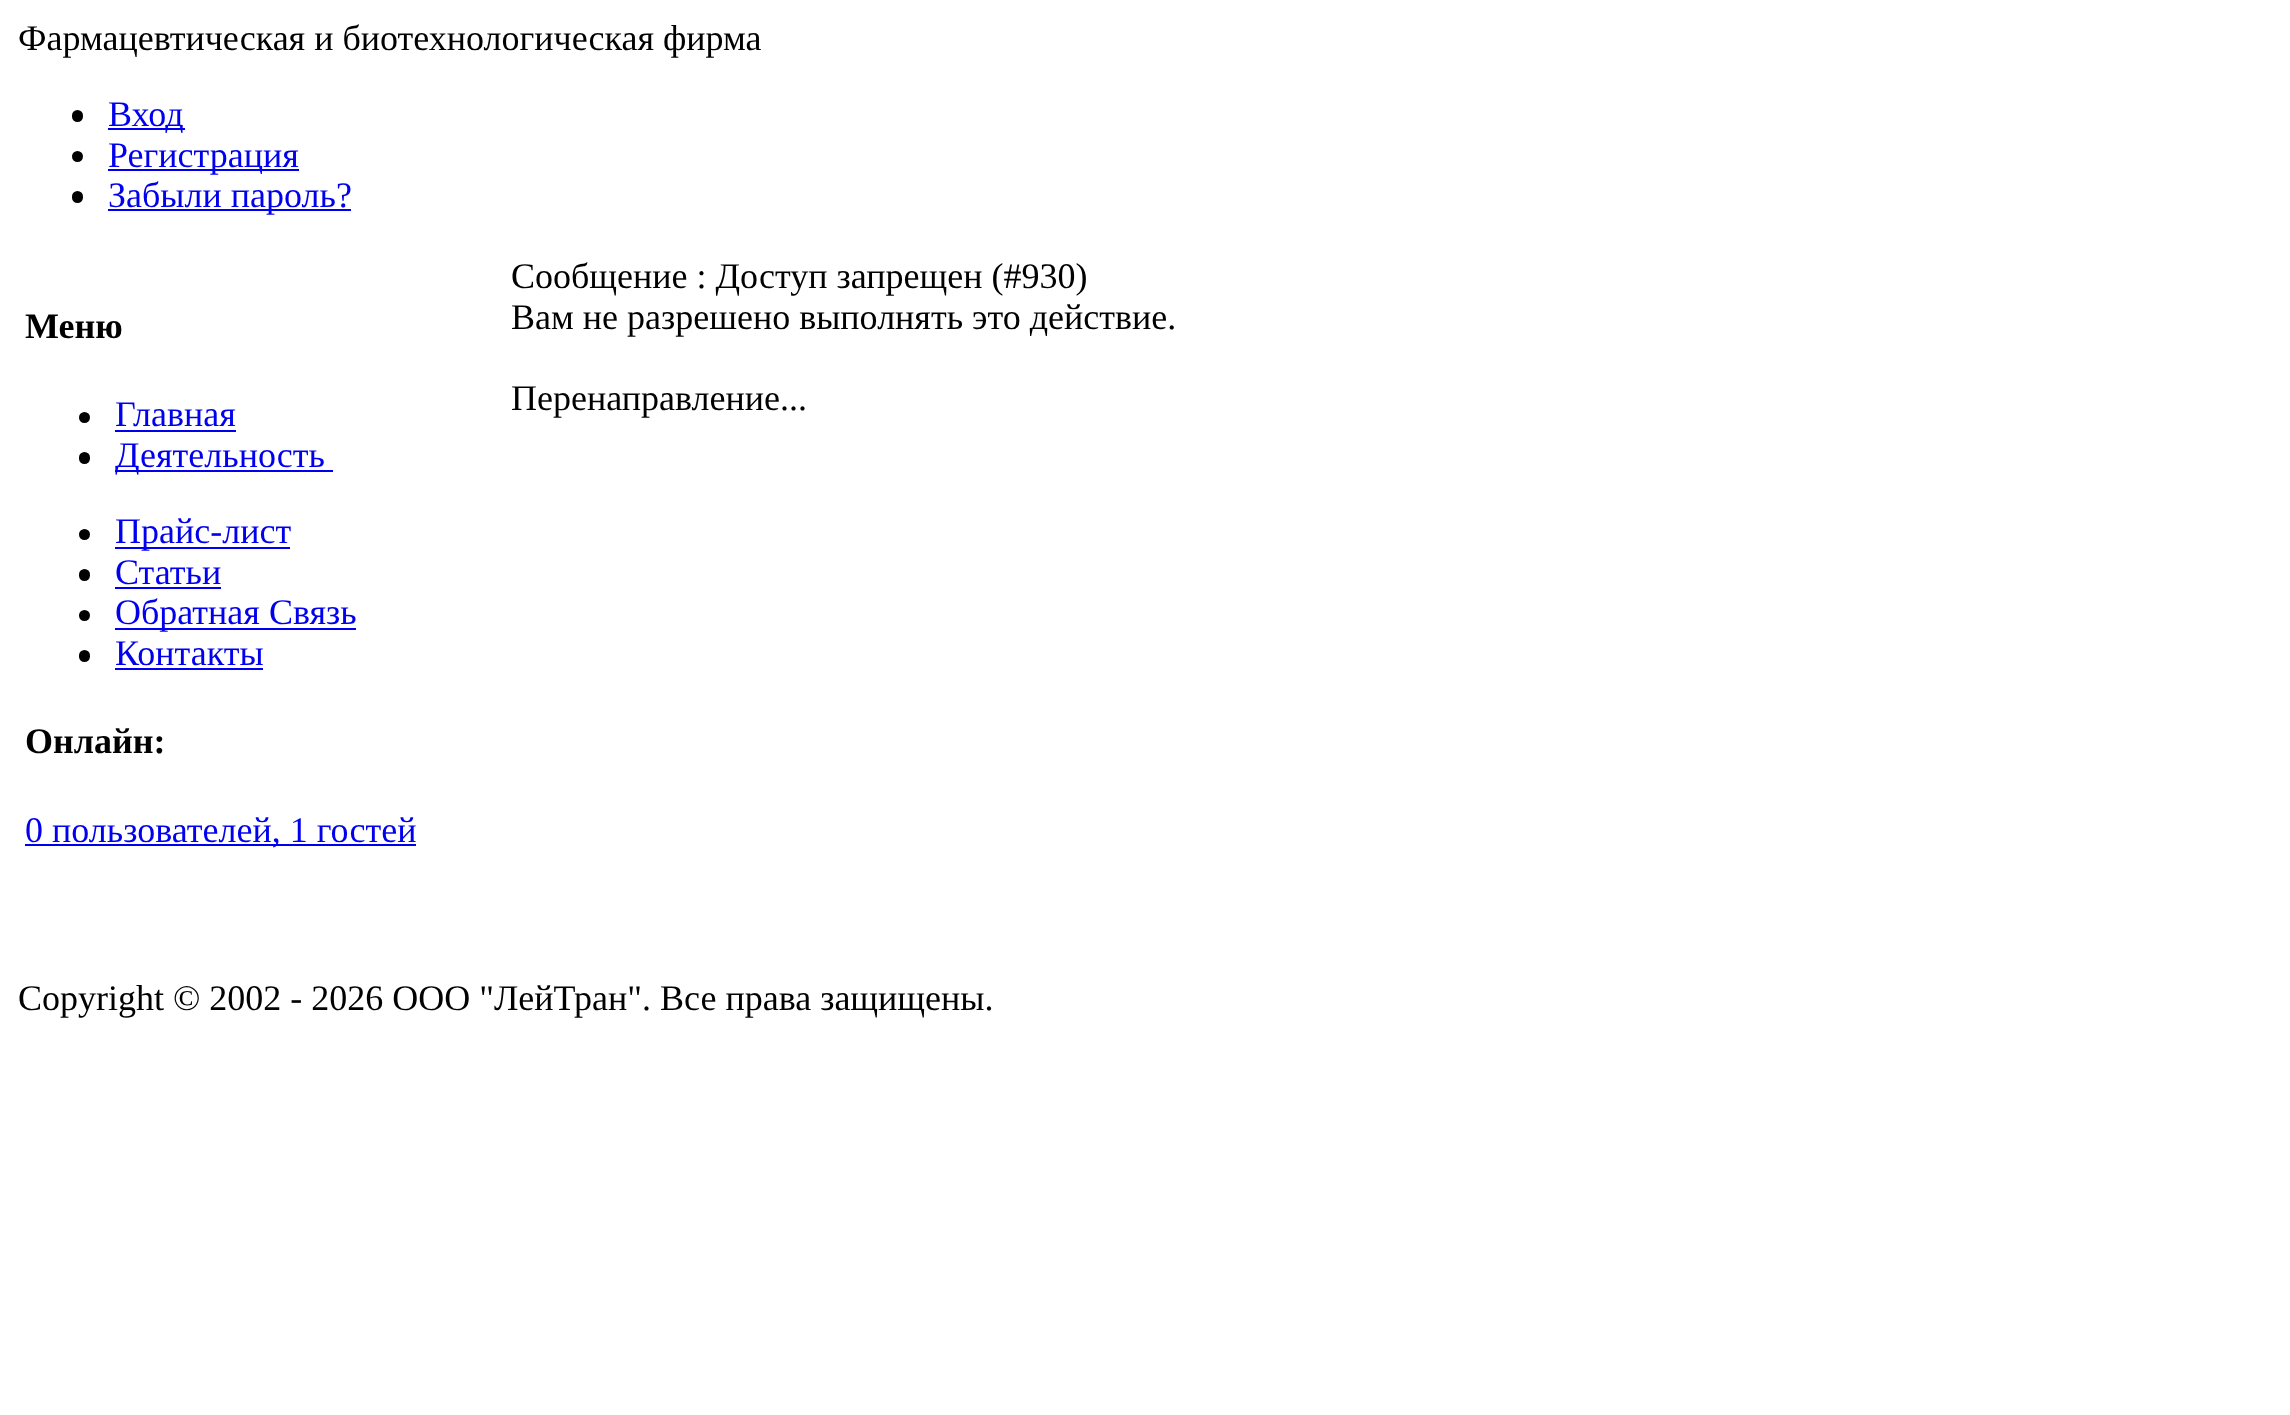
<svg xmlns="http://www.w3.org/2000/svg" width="2290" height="1415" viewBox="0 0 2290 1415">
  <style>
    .t1 { font: 36px Liberation Serif; fill: #000; }
    .t2 { font: 36px Liberation Serif; fill: #00e; }
    .t3 { font: bold 36px Liberation Serif; fill: #000; }
  </style>
  <rect width="100%" height="100%" fill="#fff"/>
  <text x="18" y="50" class="t1">Фармацевтическая и биотехнологическая фирма</text>
  <rect x="72" y="110" width="11" height="12" rx="5.5" fill="#000"/>
  <rect x="108" y="128" width="77" height="2" fill="#00e"/>
  <text x="108" y="126" class="t2">Вход</text>
  <circle cx="77.5" cy="156.5" r="5.5" fill="#000"/>
  <rect x="108" y="169" width="191" height="2" fill="#00e"/>
  <text x="108" y="167" class="t2">Регистрация</text>
  <rect x="72" y="191" width="11" height="12" rx="5.5" fill="#000"/>
  <rect x="108" y="209" width="243" height="2" fill="#00e"/>
  <text x="108" y="207" class="t2">Забыли пароль?</text>
  <text x="25" y="338" class="t3">Меню</text>
  <circle cx="84.5" cy="417.5" r="5.5" fill="#000"/>
  <text x="115" y="426" class="t2">Главная</text>
  <rect x="115" y="430" width="121" height="2" fill="#00e"/>
  <rect x="79" y="452" width="11" height="12" rx="5.5" fill="#000"/>
  <rect x="115" y="470" width="218" height="2" fill="#00e"/>
  <text x="115" y="467" class="t2">Деятельность</text>
  <circle cx="84.5" cy="534.5" r="5.5" fill="#000"/>
  <rect x="115" y="547" width="175" height="2" fill="#00e"/>
  <text x="115" y="543" class="t2">Прайс-лист</text>
  <rect x="79" y="569" width="11" height="12" rx="5.5" fill="#000"/>
  <text x="115" y="584" class="t2">Статьи</text>
  <rect x="115" y="587" width="106" height="2" fill="#00e"/>
  <circle cx="84.5" cy="615.5" r="5.5" fill="#000"/>
  <rect x="115" y="628" width="241" height="2" fill="#00e"/>
  <text x="115" y="624" class="t2">Обратная Связь</text>
  <rect x="79" y="650" width="11" height="12" rx="5.5" fill="#000"/>
  <text x="115" y="665" class="t2">Контакты</text>
  <rect x="115" y="668" width="148" height="2" fill="#00e"/>
  <text x="25" y="753" class="t3">Онлайн:</text>
  <rect x="25" y="844" width="391" height="2" fill="#00e"/>
  <text x="25" y="842" class="t2">0 пользователей, 1 гостей</text>
  <text x="511" y="288" class="t1">Сообщение : Доступ запрещен (#930)</text>
  <text x="511" y="329" class="t1">Вам не разрешено выполнять это действие.</text>
  <text x="511" y="410" class="t1">Перенаправление...</text>
  <text x="18" y="1010" class="t1">Copyright © 2002 - 2026 ООО "ЛейТран". Все права защищены.</text>
</svg>
